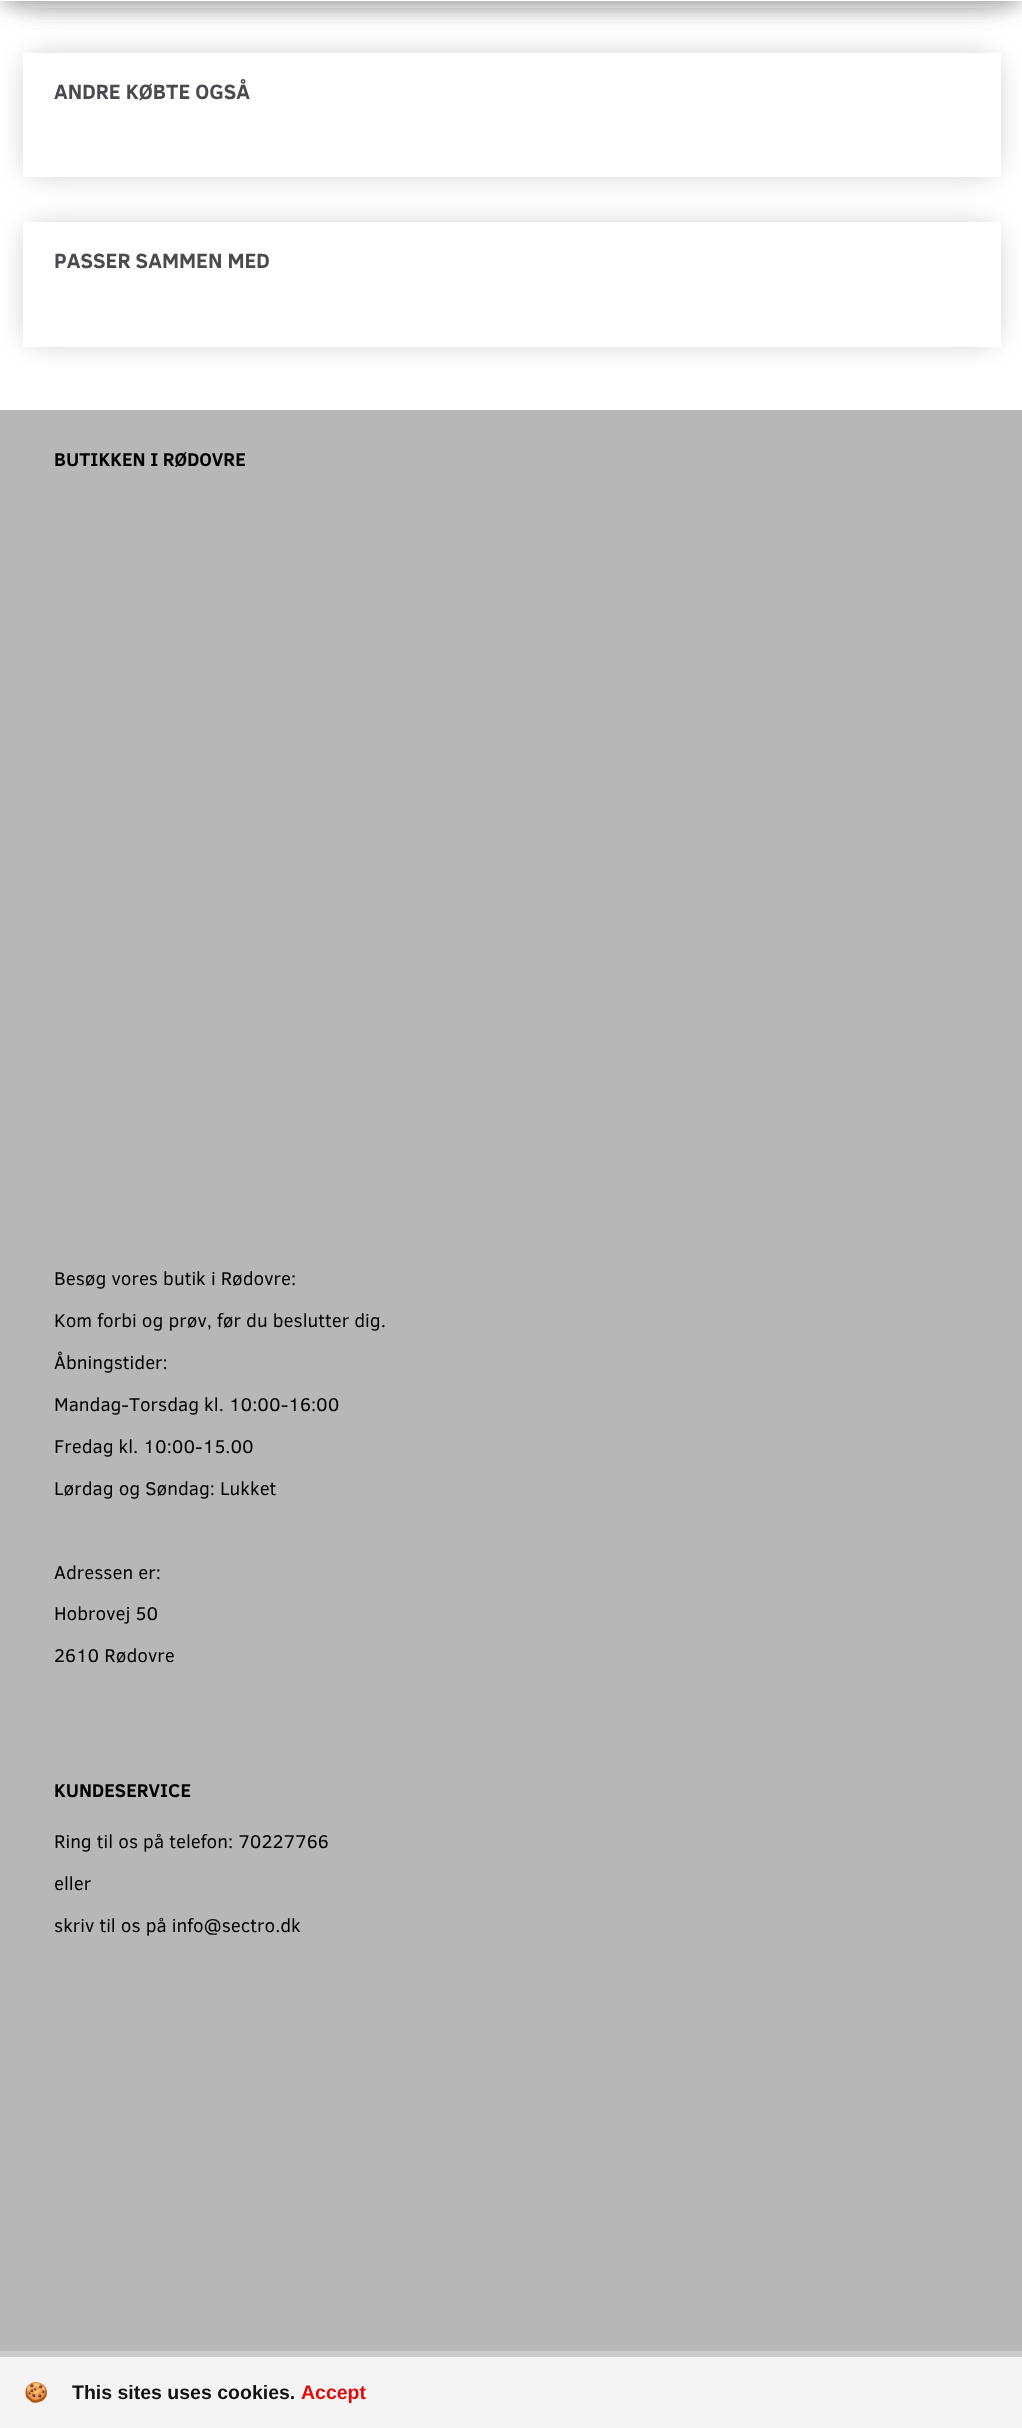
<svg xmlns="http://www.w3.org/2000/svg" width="1022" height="2428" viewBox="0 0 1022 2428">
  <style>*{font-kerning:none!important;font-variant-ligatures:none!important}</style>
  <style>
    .t1 { font: bold 21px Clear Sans; fill: #4b4a50; }
    .t2 { font: bold 18.9px Clear Sans; fill: #000; }
    .t3 { font: 18.9px Clear Sans; fill: #000; }
    .t4 { font: bold 19.5px Noto Color Emoji; fill: #111; }
    .t5 { font: bold 19.5px Liberation Sans; fill: #111; }
    .t6 { font: bold 19.5px Liberation Sans; fill: #e10808; }
  </style>
  <rect width="100%" height="100%" fill="#fff"/>
  <rect x="30" y="-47" width="963" height="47" rx="1.5" fill="#b8b8b8" filter="blur(15px)"/>
  <rect x="23" y="-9" width="978" height="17" rx="9" fill="#fff"/>
  <rect x="8" y="-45" width="1008" height="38" fill="#949494" filter="blur(15px)"/>
  <rect x="8" y="-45" width="1008" height="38" fill="#949494" filter="blur(15px)"/>
  <rect x="8" y="-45" width="1008" height="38" fill="#949494" filter="blur(15px)"/>
  <rect x="0" y="0" width="1022" height="1" fill="#fff"/>
  <rect x="30" y="60" width="963" height="110" fill="#b8b8b8" filter="blur(15px)"/>
  <rect x="23" y="53" width="978" height="124" fill="#fff"/>
  <text x="54" y="99" class="t1">ANDRE KØBTE OGSÅ</text>
  <rect x="30" y="230" width="963" height="109" fill="#b8b8b8" filter="blur(15px)"/>
  <rect x="23" y="222" width="978" height="125" fill="#fff"/>
  <text x="54" y="268" class="t1">PASSER SAMMEN MED</text>
  <rect x="0" y="410" width="1022" height="1941" fill="#b7b7b7"/>
  <text x="54" y="466" class="t2">BUTIKKEN I RØDOVRE</text>
  <text x="54" y="1285" class="t3">Besøg vores butik i Rødovre:</text>
  <text x="54" y="1327" class="t3">Kom forbi og prøv, før du beslutter dig.</text>
  <text x="54" y="1369" class="t3">Åbningstider:</text>
  <text x="54" y="1411" class="t3">Mandag-Torsdag kl. 10:00-16:00</text>
  <text x="54" y="1453" class="t3">Fredag kl. 10:00-15.00</text>
  <text x="54" y="1495" class="t3">Lørdag og Søndag: Lukket</text>
  <text x="54" y="1579" class="t3">Adressen er:</text>
  <text x="54" y="1620" class="t3">Hobrovej 50</text>
  <text x="54" y="1662" class="t3">2610 Rødovre</text>
  <text x="54" y="1797" class="t2">KUNDESERVICE</text>
  <text x="54" y="1848" class="t3">Ring til os på telefon: 70227766</text>
  <text x="54" y="1890" class="t3">eller</text>
  <text x="54" y="1932" class="t3">skriv til os på info@sectro.dk</text>
  <rect x="0" y="2357" width="1022" height="71" fill="#f4f4f4"/>
  <rect x="0" y="2351" width="1022" height="6" fill="#ccc"/>
  <text x="24" y="2399" class="t4">🍪</text>
  <text x="72" y="2399" class="t5">This sites uses cookies.</text>
  <text x="301" y="2399" class="t6">Accept</text>
</svg>
